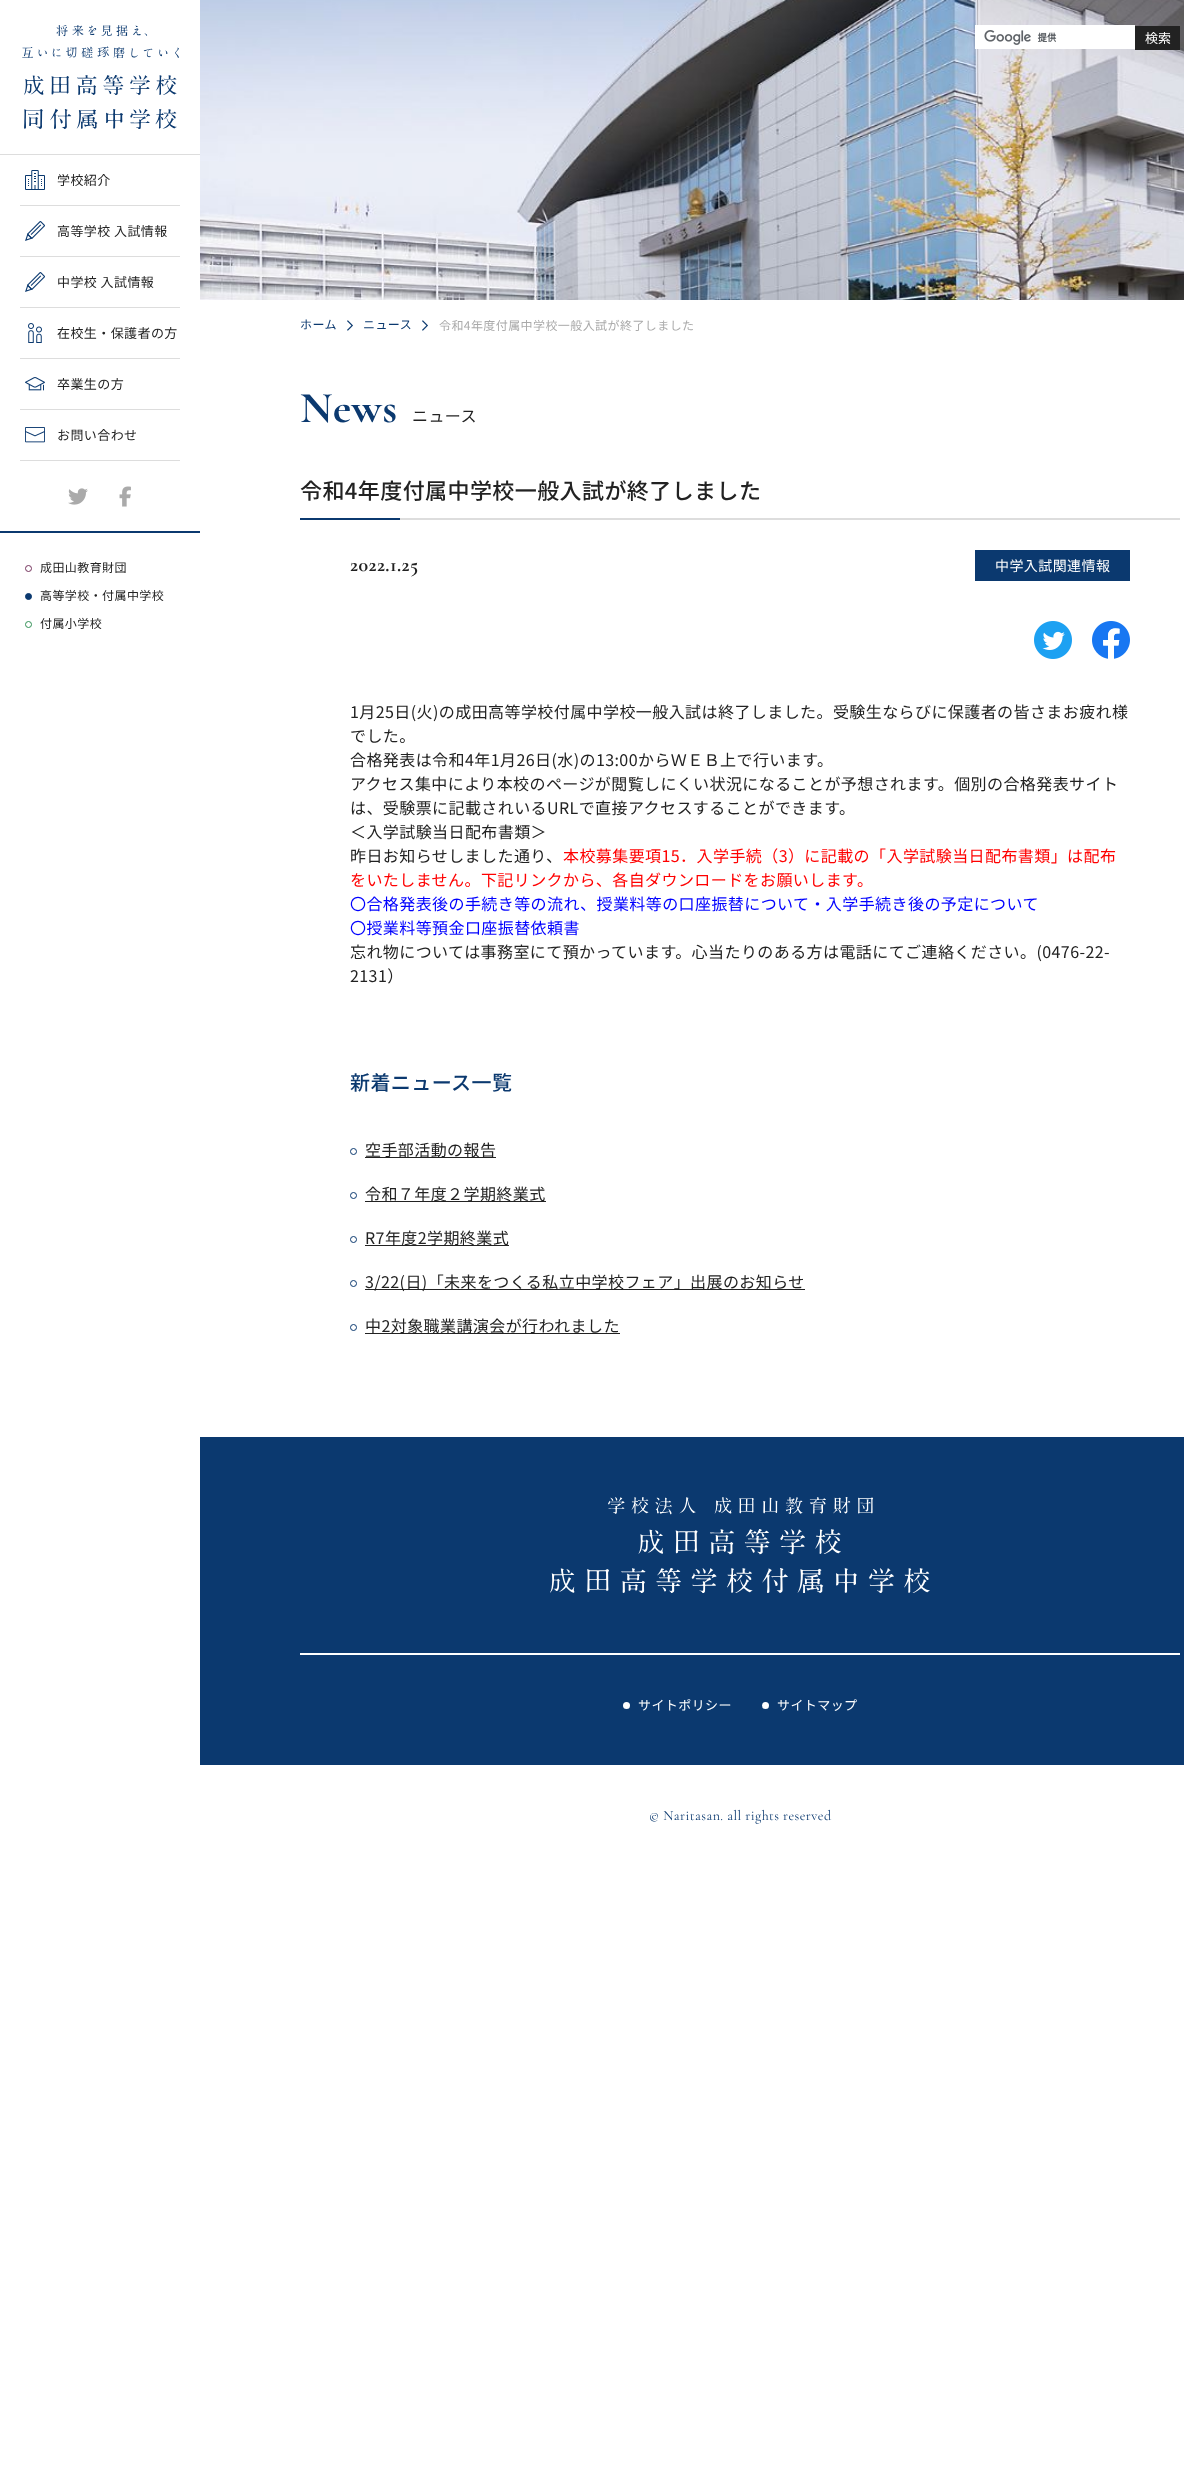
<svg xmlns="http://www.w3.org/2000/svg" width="1184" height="2473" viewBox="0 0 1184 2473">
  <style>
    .t1 { font: 13px Noto Sans JP; letter-spacing: 0.42px; fill: #222; }
    .t2 { font: 12px Noto Sans JP; letter-spacing: 0.42px; fill: #222; }
    .t3 { font: 13px Noto Sans JP; fill: #fff; }
    .t4 { font: 12px Noto Sans JP; letter-spacing: 0.42px; fill: #0b396f; }
    .t5 { font: 12px Noto Sans JP; letter-spacing: 0.42px; fill: #aaa; }
    .t6 { font: bold 44px Cormorant Garamond; letter-spacing: 0.42px; fill: #0b396f; }
    .t7 { font: 16px Noto Sans JP; letter-spacing: 0.42px; fill: #222; }
    .t8 { font: 500 22px Noto Sans JP; letter-spacing: 0.42px; fill: #222; }
    .t9 { font: bold 20px Cormorant Garamond; letter-spacing: 0.42px; fill: #222; }
    .t10 { font: 14px Noto Sans JP; letter-spacing: 0.42px; fill: #fff; }
    .t11 { font: 16px Noto Sans JP; letter-spacing: 0.42px; fill: #f00; }
    .t12 { font: 16px Noto Sans JP; letter-spacing: 0.42px; fill: #00f; }
    .t13 { font: 500 20px Noto Sans JP; letter-spacing: 0.42px; fill: #0b396f; }
    .t14 { font: 13px Noto Sans JP; letter-spacing: 0.42px; fill: #fff; }
    .t15 { font: 14px Cormorant Garamond; letter-spacing: 0.42px; fill: #0b396f; }
  </style>
  <rect width="100%" height="100%" fill="#fff"/>
  <rect x="0" y="154" width="200" height="1" fill="#ddd"/>
  <image x="22" y="25" width="157" height="104" href="images/1.png"/>
  <rect x="20" y="205" width="160" height="1" fill="#ddd"/>
  <image x="25" y="170" width="20" height="20" href="images/2.png"/>
  <text x="57" y="185" class="t1">学校紹介</text>
  <rect x="20" y="256" width="160" height="1" fill="#ddd"/>
  <image x="25" y="221" width="20" height="20" href="images/3.png"/>
  <text x="57" y="236" class="t1">高等学校 入試情報</text>
  <rect x="20" y="307" width="160" height="1" fill="#ddd"/>
  <image x="25" y="272" width="20" height="20" href="images/3.png"/>
  <text x="57" y="287" class="t1">中学校 入試情報</text>
  <rect x="20" y="358" width="160" height="1" fill="#ddd"/>
  <image x="28" y="323" width="14" height="20" href="images/4.png"/>
  <text x="57" y="338" class="t1">在校生・保護者の方</text>
  <rect x="20" y="409" width="160" height="1" fill="#ddd"/>
  <image x="25" y="377" width="20" height="14" href="images/5.png"/>
  <text x="57" y="389" class="t1">卒業生の方</text>
  <rect x="20" y="460" width="160" height="1" fill="#ddd"/>
  <image x="25" y="427" width="20" height="16" href="images/6.png"/>
  <text x="57" y="440" class="t1">お問い合わせ</text>
  <image x="68" y="488" width="20" height="17" href="images/7.png"/>
  <image x="119" y="486" width="12" height="21" href="images/8.png"/>
  <rect x="0" y="531" width="200" height="2" fill="#0b396f"/>
  <circle cx="28.5" cy="568.5" r="3" fill="none" stroke="#74325c"/>
  <text x="40" y="572" class="t2">成田山教育財団</text>
  <circle cx="28.5" cy="596.5" r="3" fill="#0b396f" stroke="#0b396f"/>
  <text x="40" y="600" class="t2">高等学校・付属中学校</text>
  <circle cx="28.5" cy="624.5" r="3" fill="none" stroke="#309055"/>
  <text x="40" y="628" class="t2">付属小学校</text>
  <image x="200" y="0" width="984" height="300" href="images/9.png"/>
  <rect x="975" y="25" width="160" height="24" fill="#fff"/>
  <image x="984" y="30" width="73" height="15" href="images/10.png"/>
  <rect x="1135" y="26" width="45" height="24" fill="#222"/>
  <text x="1145" y="43" class="t3">検索</text>
  <text x="300" y="329" class="t4">ホーム</text>
  <image x="347" y="320" width="6" height="11" href="images/11.png"/>
  <text x="363" y="329" class="t4">ニュース</text>
  <image x="422" y="320" width="6" height="11" href="images/11.png"/>
  <text x="439" y="330" class="t5">令和4年度付属中学校一般入試が終了しました</text>
  <text x="300" y="422" class="t6">News</text>
  <text x="412" y="422" class="t7">ニュース</text>
  <rect x="400" y="518" width="780" height="2" fill="#ddd"/>
  <text x="300" y="499" class="t8">令和4年度付属中学校一般入試が終了しました</text>
  <rect x="300" y="518" width="100" height="2" fill="#0b396f"/>
  <text x="350" y="571" class="t9">2022.1.25</text>
  <rect x="975" y="550" width="155" height="31" fill="#0b396f"/>
  <text x="995" y="571" class="t10">中学入試関連情報</text>
  <image x="1034" y="621" width="38" height="38" href="images/12.png"/>
  <image x="1092" y="621" width="38" height="38" href="images/13.png"/>
  <text x="350" y="718" class="t7">1月25日(火)の成田高等学校付属中学校一般入試は終了しました。受験生ならびに保護者の皆さまお疲れ様</text>
  <text x="350" y="742" class="t7">でした。</text>
  <text x="350" y="766" class="t7">合格発表は令和4年1月26日(水)の13:00からＷＥＢ上で行います。</text>
  <text x="350" y="790" class="t7">アクセス集中により本校のページが閲覧しにくい状況になることが予想されます。個別の合格発表サイト</text>
  <text x="350" y="814" class="t7">は、受験票に記載されいるURLで直接アクセスすることができます。</text>
  <text x="350" y="838" class="t7">＜入学試験当日配布書類＞</text>
  <text x="350" y="862" class="t7">昨日お知らせしました通り、</text>
  <text x="563" y="862" class="t11">本校募集要項15．入学手続（3）に記載の「入学試験当日配布書類」は配布</text>
  <text x="350" y="886" class="t11">をいたしません。下記リンクから、各自ダウンロードをお願いします。</text>
  <text x="350" y="910" class="t12">〇合格発表後の手続き等の流れ、授業料等の口座振替について・入学手続き後の予定について</text>
  <text x="350" y="934" class="t12">〇授業料等預金口座振替依頼書</text>
  <text x="350" y="958" class="t7">忘れ物については事務室にて預かっています。心当たりのある方は電話にてご連絡ください。(0476-22-</text>
  <text x="350" y="982" class="t7">2131）</text>
  <text x="350" y="1090" class="t13">新着ニュース一覧</text>
  <circle cx="353.5" cy="1151.5" r="3" fill="none" stroke="#0b396f"/>
  <rect x="365" y="1157" width="131" height="1" fill="#222"/>
  <text x="365" y="1156" class="t7">空手部活動の報告</text>
  <circle cx="353.5" cy="1195.5" r="3" fill="none" stroke="#0b396f"/>
  <rect x="365" y="1201" width="181" height="1" fill="#222"/>
  <text x="365" y="1200" class="t7">令和７年度２学期終業式</text>
  <circle cx="353.5" cy="1239.5" r="3" fill="none" stroke="#0b396f"/>
  <rect x="365" y="1245" width="144" height="1" fill="#222"/>
  <text x="365" y="1244" class="t7">R7年度2学期終業式</text>
  <circle cx="353.5" cy="1283.5" r="3" fill="none" stroke="#0b396f"/>
  <rect x="365" y="1289" width="440" height="1" fill="#222"/>
  <text x="365" y="1288" class="t7">3/22(日)「未来をつくる私立中学校フェア」出展のお知らせ</text>
  <circle cx="353.5" cy="1327.5" r="3" fill="none" stroke="#0b396f"/>
  <rect x="365" y="1333" width="255" height="1" fill="#222"/>
  <text x="365" y="1332" class="t7">中2対象職業講演会が行われました</text>
  <rect x="200" y="1437" width="984" height="328" fill="#0b396f"/>
  <image x="550" y="1497" width="380" height="96" href="images/14.png"/>
  <rect x="300" y="1653" width="880" height="2" fill="#fff"/>
  <circle cx="626.5" cy="1705.5" r="3.5" fill="#fff"/>
  <text x="638" y="1710" class="t14">サイトポリシー</text>
  <circle cx="765.5" cy="1705.5" r="3.5" fill="#fff"/>
  <text x="777" y="1710" class="t14">サイトマップ</text>
  <text x="649" y="1820" class="t15">© Naritasan. all rights reserved</text>
</svg>
